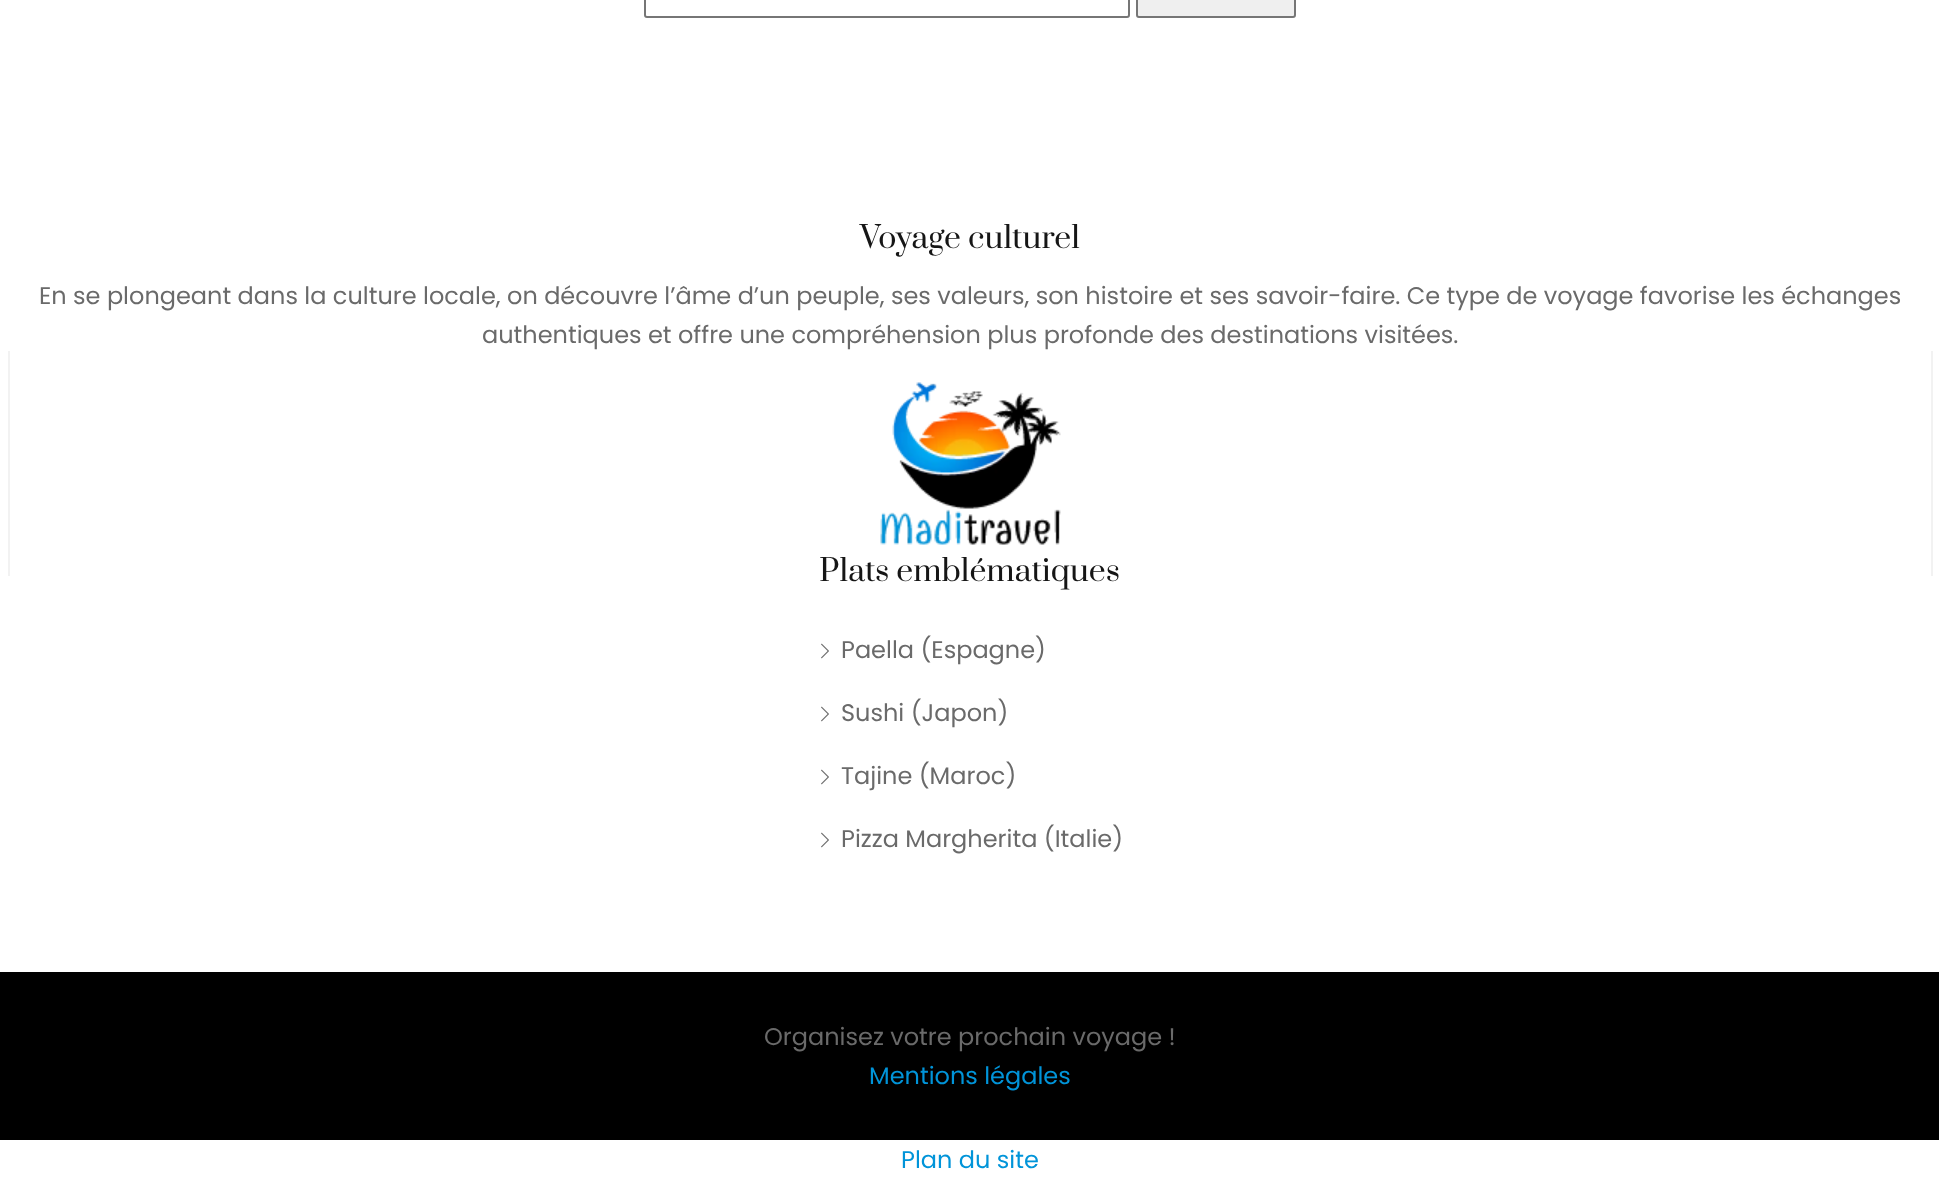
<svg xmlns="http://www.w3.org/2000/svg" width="1939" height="1178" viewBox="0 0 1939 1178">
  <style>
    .t1 { font: 30px Prata; fill: #161616; }
    .t2 { font: 24px Poppins; fill: #6a6a6a; }
    .t3 { font: 24px Poppins; fill: #0094d9; }
  </style>
  <rect width="100%" height="100%" fill="#fff"/>
  <rect x="645" y="-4" width="484" height="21" rx="2" fill="none" stroke="#767676" stroke-width="2"/>
  <rect x="1137" y="-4" width="158" height="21" rx="2" fill="#efefef" stroke="#767676" stroke-width="2"/>
  <text x="860" y="248" class="t1">Voyage culturel</text>
  <text x="39" y="304" class="t2">En se plongeant dans la culture locale, on découvre l’âme d’un peuple, ses valeurs, son histoire et ses savoir-faire. Ce type de voyage favorise les échanges</text>
  <text x="482" y="343" class="t2">authentiques et offre une compréhension plus profonde des destinations visitées.</text>
  <rect x="8" y="351" width="2" height="225" fill="#f2f2f2"/>
  <image x="880" y="382" width="181" height="163" href="images/1.png"/>
  <rect x="1931" y="351" width="2" height="225" fill="#f2f2f2"/>
  <text x="819" y="581" class="t1">Plats emblématiques</text>
  <image x="821" y="643" width="8" height="16" href="images/2.png"/>
  <text x="841" y="658" class="t2">Paella (Espagne)</text>
  <image x="821" y="706" width="8" height="16" href="images/2.png"/>
  <text x="841" y="721" class="t2">Sushi (Japon)</text>
  <image x="821" y="769" width="8" height="16" href="images/2.png"/>
  <text x="841" y="784" class="t2">Tajine (Maroc)</text>
  <image x="821" y="832" width="8" height="16" href="images/2.png"/>
  <text x="841" y="847" class="t2">Pizza Margherita (Italie)</text>
  <rect x="0" y="972" width="1939" height="168" fill="#000"/>
  <text x="764" y="1045" class="t2">Organisez votre prochain voyage !</text>
  <text x="869" y="1084" class="t3">Mentions légales</text>
  <text x="901" y="1168" class="t3">Plan du site</text>
</svg>
